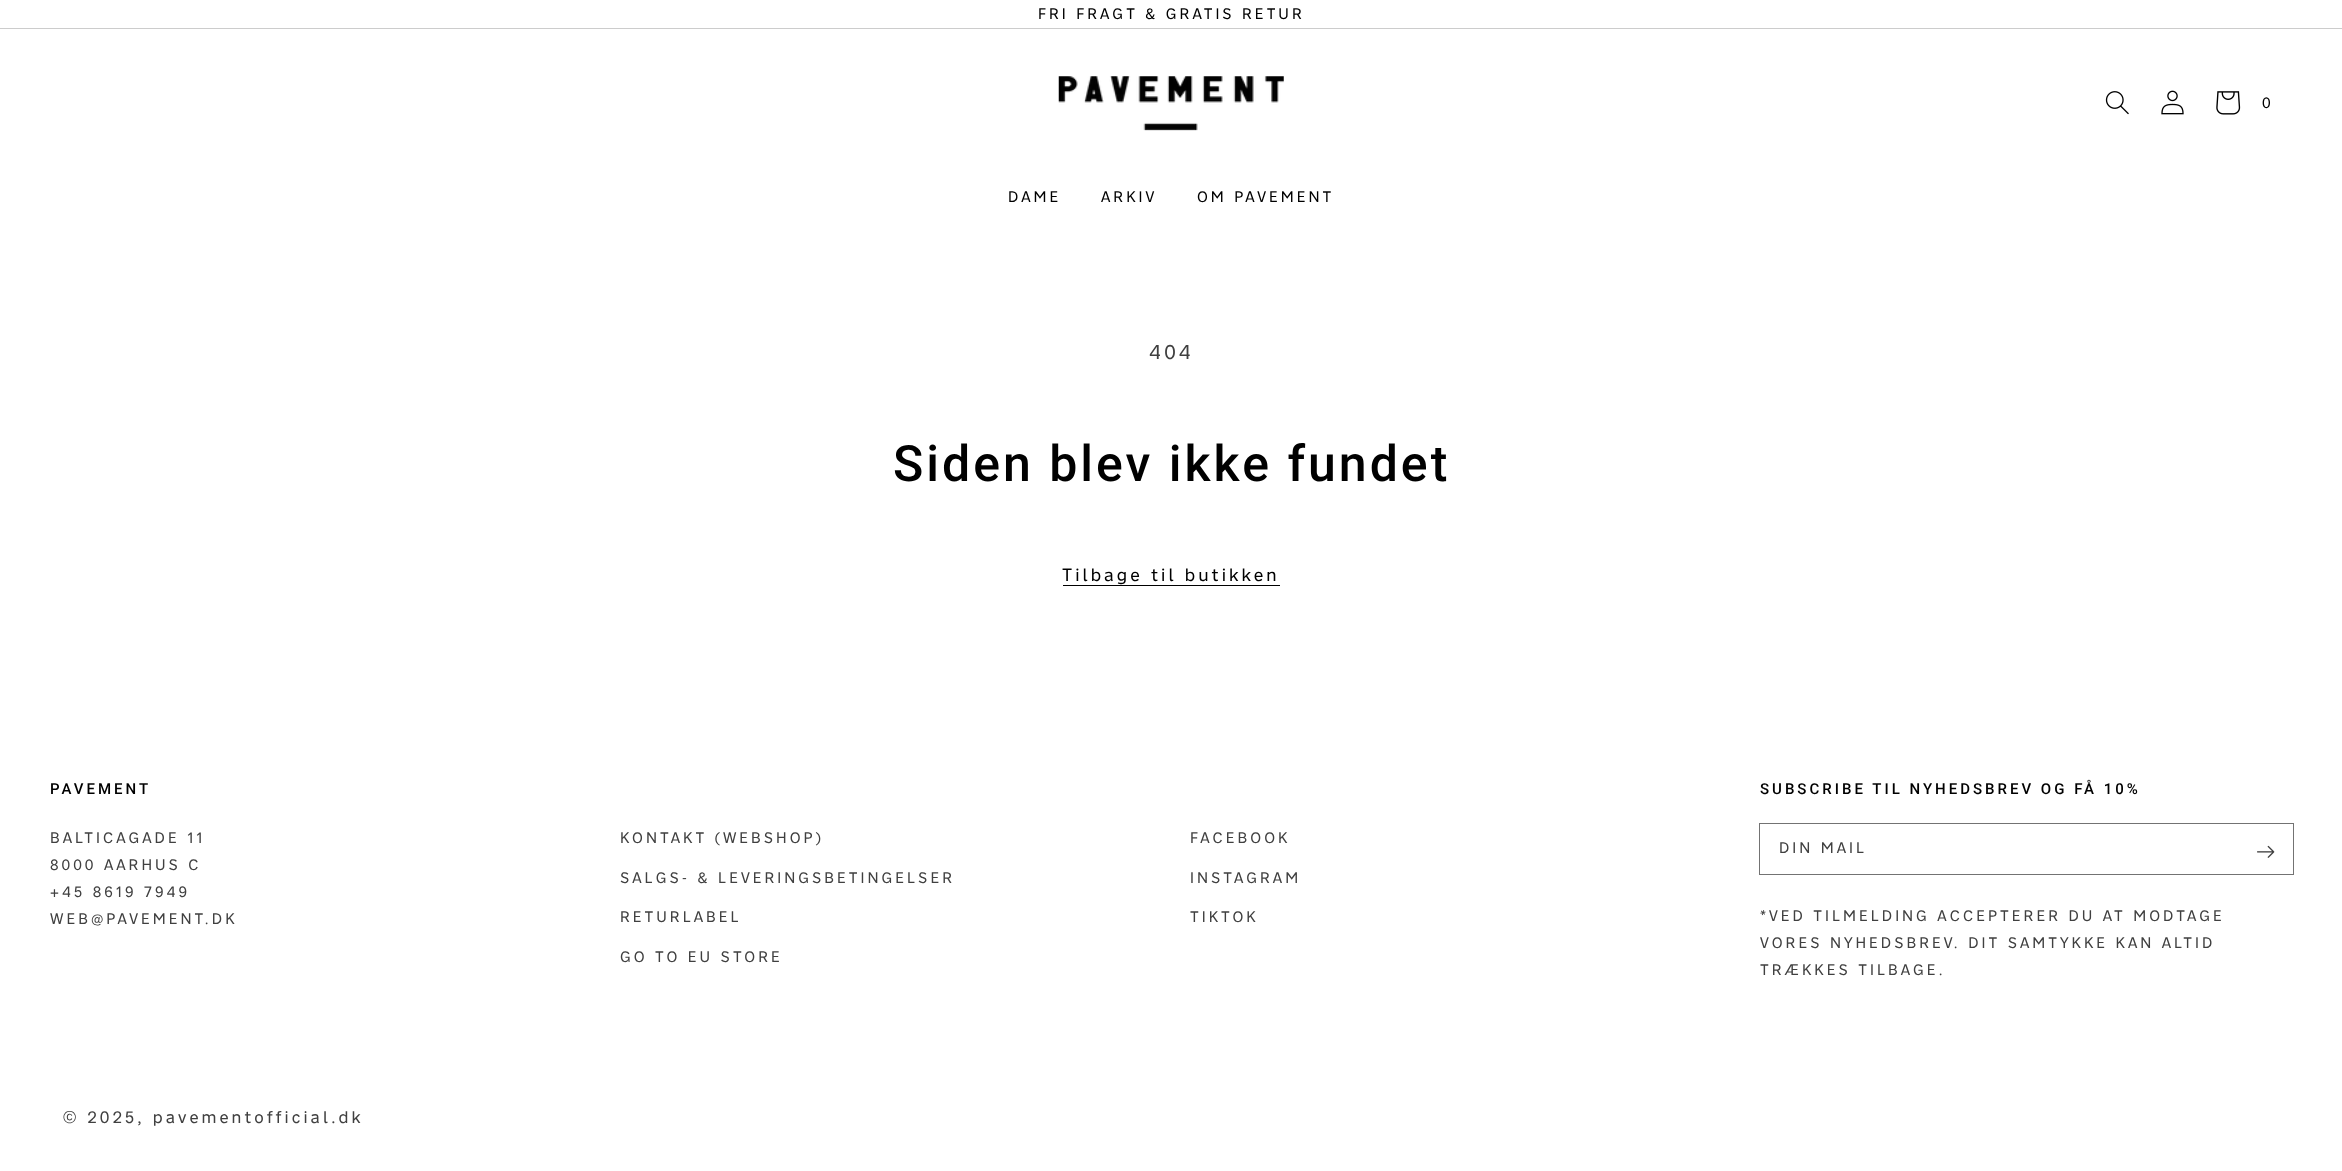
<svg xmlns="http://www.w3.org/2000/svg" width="2342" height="1171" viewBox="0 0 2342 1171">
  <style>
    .t1 { font: 15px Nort; letter-spacing: 3px; fill: #000; }
    .t2 { font: 20px Nort; letter-spacing: 3px; fill: #404040; }
    .t3 { font: 500 50px Roboto; letter-spacing: 3px; fill: #000; }
    .t4 { font: 17.5px Nort; letter-spacing: 3px; fill: #000; }
    .t5 { font: 500 15px Roboto; letter-spacing: 3px; fill: #000; }
    .t6 { font: 15px Nort; letter-spacing: 3px; fill: #404040; }
    .t7 { font: 16.7px Nort; letter-spacing: 3px; fill: #404040; }
  </style>
  <rect width="100%" height="100%" fill="#fff"/>
  <rect x="0" y="28" width="2342" height="1" fill="#ccc"/>
  <text x="1038" y="19" class="t1">FRI FRAGT &amp; GRATIS RETUR</text>
  <image x="1058" y="76" width="226" height="55" href="images/1.png"/>
  <image x="2105" y="91" width="24" height="24" href="images/2.png"/>
  <image x="2161" y="90" width="23" height="25" href="images/3.png"/>
  <image x="2216" y="91" width="25" height="24" href="images/4.png"/>
  <text x="2262" y="108" class="t1">0</text>
  <text x="1008" y="202" class="t1">DAME</text>
  <text x="1101" y="202" class="t1">ARKIV</text>
  <text x="1197" y="202" class="t1">OM PAVEMENT</text>
  <text x="1149" y="359" class="t2">404</text>
  <text x="893" y="481" class="t3">Siden blev ikke fundet</text>
  <text x="1062" y="581" class="t4">Tilbage til butikken</text>
  <rect x="1063" y="585" width="217" height="1" fill="#000"/>
  <text x="50" y="794" class="t5">PAVEMENT</text>
  <text x="50" y="843" class="t6">BALTICAGADE 11</text>
  <text x="50" y="870" class="t6">8000 AARHUS C</text>
  <text x="50" y="897" class="t6">+45 8619 7949</text>
  <text x="50" y="924" class="t6">WEB@PAVEMENT.DK</text>
  <text x="620" y="843" class="t6">KONTAKT (WEBSHOP)</text>
  <text x="620" y="883" class="t6">SALGS- &amp; LEVERINGSBETINGELSER</text>
  <text x="620" y="922" class="t6">RETURLABEL</text>
  <text x="620" y="962" class="t6">GO TO EU STORE</text>
  <text x="1190" y="843" class="t6">FACEBOOK</text>
  <text x="1190" y="883" class="t6">INSTAGRAM</text>
  <text x="1190" y="922" class="t6">TIKTOK</text>
  <text x="1760" y="794" class="t5">SUBSCRIBE TIL NYHEDSBREV OG FÅ 10%</text>
  <rect x="1759.5" y="823.5" width="534" height="51" fill="none" stroke="#737373"/>
  <text x="1779" y="853" class="t6">DIN MAIL</text>
  <image x="2257" y="845" width="18" height="13" href="images/5.png"/>
  <text x="1760" y="921" class="t6">*VED TILMELDING ACCEPTERER DU AT MODTAGE</text>
  <text x="1760" y="948" class="t6">VORES NYHEDSBREV. DIT SAMTYKKE KAN ALTID</text>
  <text x="1760" y="975" class="t6">TRÆKKES TILBAGE.</text>
  <text x="63" y="1123" class="t7">© 2025, pavementofficial.dk</text>
</svg>
